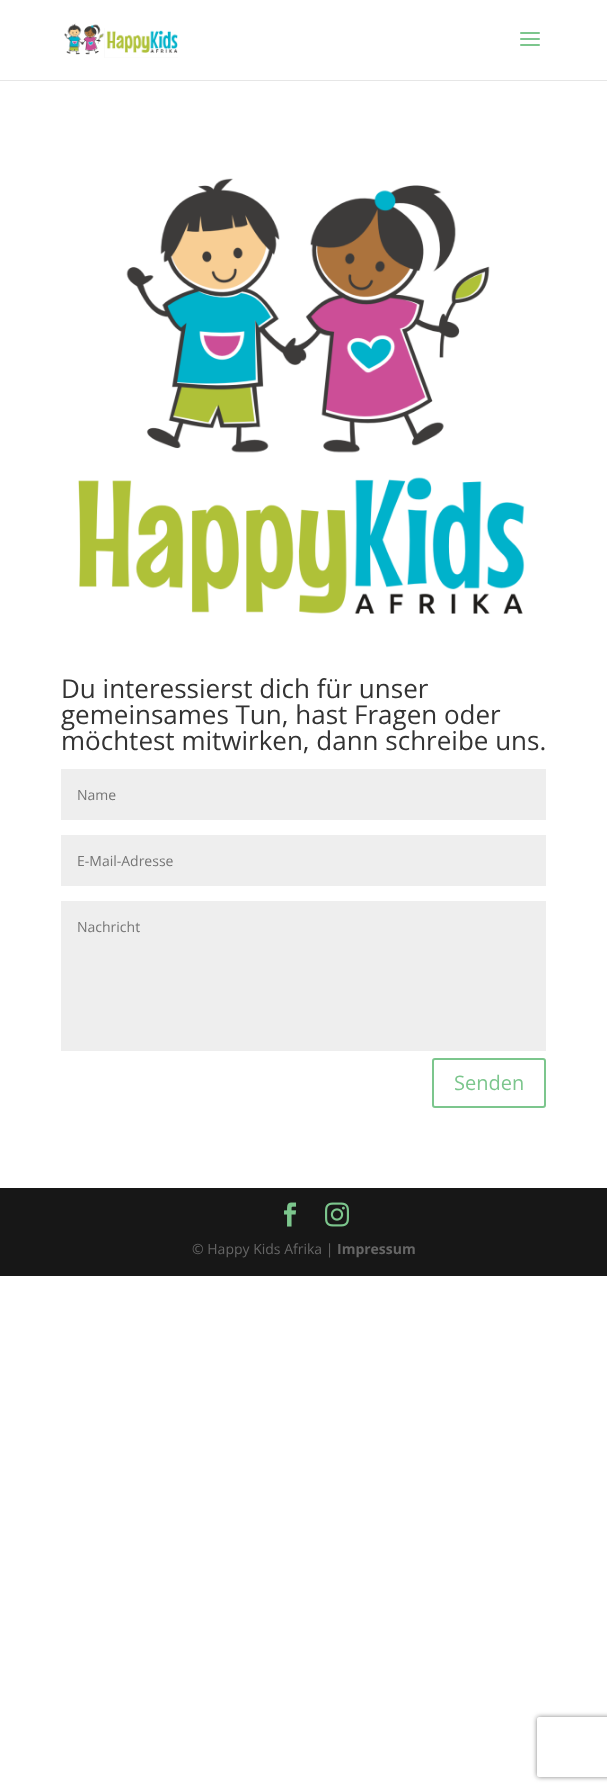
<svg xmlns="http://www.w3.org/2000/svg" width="607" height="1791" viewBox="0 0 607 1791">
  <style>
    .t1 { font: 26px Open Sans; fill: #333; }
    .t2 { font: 14px Open Sans; fill: #757575; }
    .t3 { font: 20px Open Sans; fill: #7cc68d; }
    .t4 { font: 14px Open Sans; fill: #666; }
    .t5 { font: bold 14px Open Sans; fill: #666; }
  </style>
  <defs>
    <clipPath id="clip1"><path d="M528 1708H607V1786H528ZM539 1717H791C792 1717 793 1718 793 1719V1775C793 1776 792 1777 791 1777H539C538 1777 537 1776 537 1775V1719C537 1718 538 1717 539 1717Z" clip-rule="evenodd"/></clipPath>
  </defs>
  <rect width="100%" height="100%" fill="#fff"/>
  <rect x="0" y="80" width="607" height="1" fill="#e6e6e6"/>
  <image x="64" y="23" width="114" height="35" href="images/1.png"/>
  <image x="520" y="32" width="20" height="14" href="images/2.png"/>
  <image x="78" y="178" width="447" height="436" href="images/3.png"/>
  <text x="61" y="698" class="t1">Du interessierst dich für unser</text>
  <text x="61" y="724" class="t1">gemeinsames Tun, hast Fragen oder</text>
  <text x="61" y="750" class="t1">möchtest mitwirken, dann schreibe uns.</text>
  <rect x="61" y="769" width="485" height="51" fill="#eee"/>
  <text x="77" y="800" class="t2">Name</text>
  <rect x="61" y="835" width="485" height="51" fill="#eee"/>
  <text x="77" y="866" class="t2">E-Mail-Adresse</text>
  <rect x="61" y="901" width="485" height="150" fill="#eee"/>
  <text x="77" y="932" class="t2">Nachricht</text>
  <rect x="433" y="1059" width="112" height="48" rx="2" fill="none" stroke="#7cc68d" stroke-width="2"/>
  <text x="454" y="1090" class="t3">Senden</text>
  <rect x="0" y="1188" width="607" height="88" fill="#171717"/>
  <image x="284" y="1202" width="13" height="25" href="images/4.png"/>
  <image x="325" y="1202" width="24" height="25" href="images/5.png"/>
  <text x="192" y="1254" class="t4">© Happy Kids Afrika |</text>
  <text x="337" y="1254" class="t5">Impressum</text>
  <g clip-path="url(#clip1)">
    <rect x="537" y="1717" width="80" height="60" rx="2" fill="#808080" filter="blur(2.5px)"/>
  </g>
</svg>
